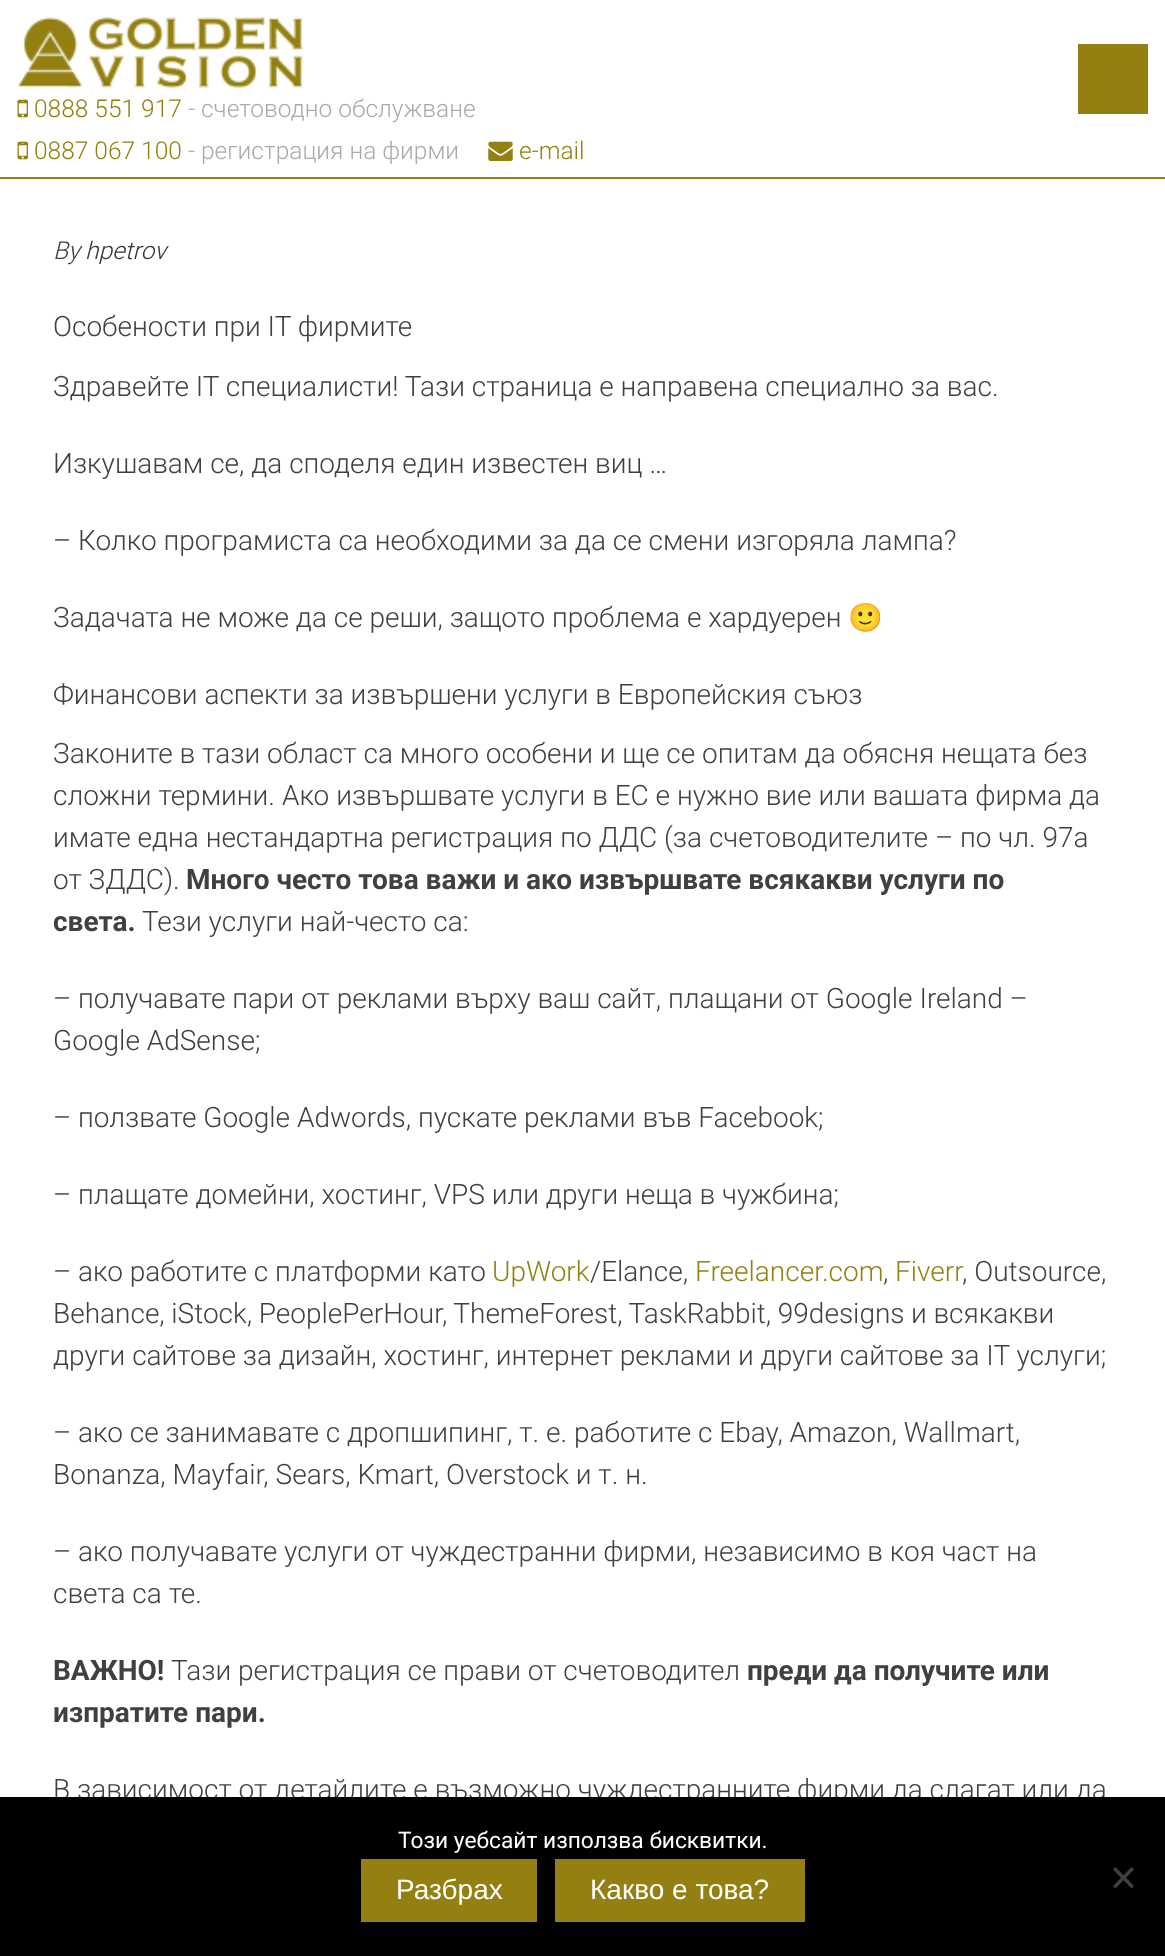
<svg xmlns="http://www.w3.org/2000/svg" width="1165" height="1956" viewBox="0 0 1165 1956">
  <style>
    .t1 { font: 300 24.5px Roboto; fill: #938011; }
    .t2 { font: 300 24.5px Roboto; fill: #aaa; }
    .t3 { font: italic 300 24.5px Roboto; fill: #404040; }
    .t4 { font: italic 300 24.5px Roboto; fill: #333; }
    .t5 { font: 300 28px Roboto; fill: #404040; }
    .t6 { font: 28px Noto Color Emoji; fill: #404040; }
    .t7 { font: bold 28px Roboto; fill: #404040; }
    .t8 { font: 300 28px Roboto; fill: #938011; }
    .t9 { font: 22.75px Roboto; fill: #fff; }
    .t10 { font: 28px Liberation Sans; fill: #fff; }
  </style>
  <rect width="100%" height="100%" fill="#fff"/>
  <rect x="0" y="177" width="1165" height="2" fill="#938011"/>
  <rect x="1078" y="44" width="70" height="70" fill="#938011"/>
  <image x="17" y="17" width="286" height="71" href="images/1.png"/>
  <image x="17" y="99" width="11" height="19" href="images/2.png"/>
  <text x="34" y="117" class="t1">0888 551 917</text>
  <text x="188" y="117" class="t2">- счетоводно обслужване</text>
  <image x="17" y="141" width="11" height="19" href="images/2.png"/>
  <text x="34" y="159" class="t1">0887 067 100</text>
  <text x="188" y="159" class="t2">- регистрация на фирми</text>
  <image x="488" y="141" width="25" height="20" href="images/3.png"/>
  <text x="519" y="159" class="t1">e-mail</text>
  <text x="53" y="259" class="t3">By</text>
  <text x="85" y="259" class="t4">hpetrov</text>
  <text x="53" y="336" class="t5">Особености при IT фирмите</text>
  <text x="53" y="396" class="t5">Здравейте IT специалисти! Тази страница е направена специално за вас.</text>
  <text x="53" y="473" class="t5">Изкушавам се, да споделя един известен виц …</text>
  <text x="53" y="550" class="t5">– Колко програмиста са необходими за да се смени изгоряла лампа?</text>
  <text x="53" y="627" class="t5">Задачата не може да се реши, защото проблема е хардуерен</text>
  <text x="848" y="627" class="t6">🙂</text>
  <text x="53" y="704" class="t5">Финансови аспекти за извършени услуги в Европейския съюз</text>
  <text x="53" y="763" class="t5">Законите в тази област са много особени и ще се опитам да обясня нещата без</text>
  <text x="53" y="805" class="t5">сложни термини. Ако извършвате услуги в ЕС е нужно вие или вашата фирма да</text>
  <text x="53" y="847" class="t5">имате една нестандартна регистрация по ДДС (за счетоводителите – по чл. 97а</text>
  <text x="53" y="889" class="t5">от ЗДДС).</text>
  <text x="186" y="889" class="t7">Много често това важи и ако извършвате всякакви услуги по</text>
  <text x="53" y="931" class="t7">света.</text>
  <text x="142" y="931" class="t5">Тези услуги най-често са:</text>
  <text x="53" y="1008" class="t5">– получавате пари от реклами върху ваш сайт, плащани от Google Ireland –</text>
  <text x="53" y="1050" class="t5">Google AdSense;</text>
  <text x="53" y="1127" class="t5">– ползвате Google Adwords, пускате реклами във Facebook;</text>
  <text x="53" y="1204" class="t5">– плащате домейни, хостинг, VPS или други неща в чужбина;</text>
  <text x="53" y="1281" class="t5">– ако работите с платформи като</text>
  <text x="492" y="1281" class="t8">UpWork</text>
  <text x="590" y="1281" class="t5">/Elance,</text>
  <text x="695" y="1281" class="t8">Freelancer.com</text>
  <text x="883" y="1281" class="t5">,</text>
  <text x="895" y="1281" class="t8">Fiverr</text>
  <text x="962" y="1281" class="t5">, Outsource,</text>
  <text x="53" y="1323" word-spacing="-0.25" class="t5">Behance, iStock, PeoplePerHour, ThemeForest, TaskRabbit, 99designs и всякакви</text>
  <text x="53" y="1365" class="t5">други сайтове за дизайн, хостинг, интернет реклами и други сайтове за IT услуги;</text>
  <text x="53" y="1442" class="t5">– ако се занимавате с дропшипинг, т. е. работите с Ebay, Amazon, Wallmart,</text>
  <text x="53" y="1484" class="t5">Bonanza, Mayfair, Sears, Kmart, Overstock и т. н.</text>
  <text x="53" y="1561" class="t5">– ако получавате услуги от чуждестранни фирми, независимо в коя част на</text>
  <text x="53" y="1603" class="t5">света са те.</text>
  <text x="53" y="1680" class="t7">ВАЖНО!</text>
  <text x="171" y="1680" class="t5">Тази регистрация се прави от счетоводител</text>
  <text x="747" y="1680" class="t7">преди да получите или</text>
  <text x="53" y="1722" class="t7">изпратите пари.</text>
  <text x="53" y="1799" class="t5">В зависимост от детайлите е възможно чуждестранните фирми да слагат или да</text>
  <rect x="0" y="1797" width="1165" height="159" fill="#000"/>
  <text x="398" y="1848" class="t9">Този уебсайт използва бисквитки.</text>
  <rect x="361" y="1859" width="176" height="63" fill="#938011"/>
  <text x="396" y="1899" class="t10">Разбрах</text>
  <rect x="555" y="1859" width="250" height="63" fill="#938011"/>
  <text x="590" y="1899" class="t10">Какво е това?</text>
  <path d="M1131.5 1867L1134 1869.5L1115.5 1888.5L1113 1886Z" fill="#404040"/>
  <path d="M1113 1869.5L1115.5 1867L1134 1886L1131.5 1888.5Z" fill="#404040"/>
</svg>
